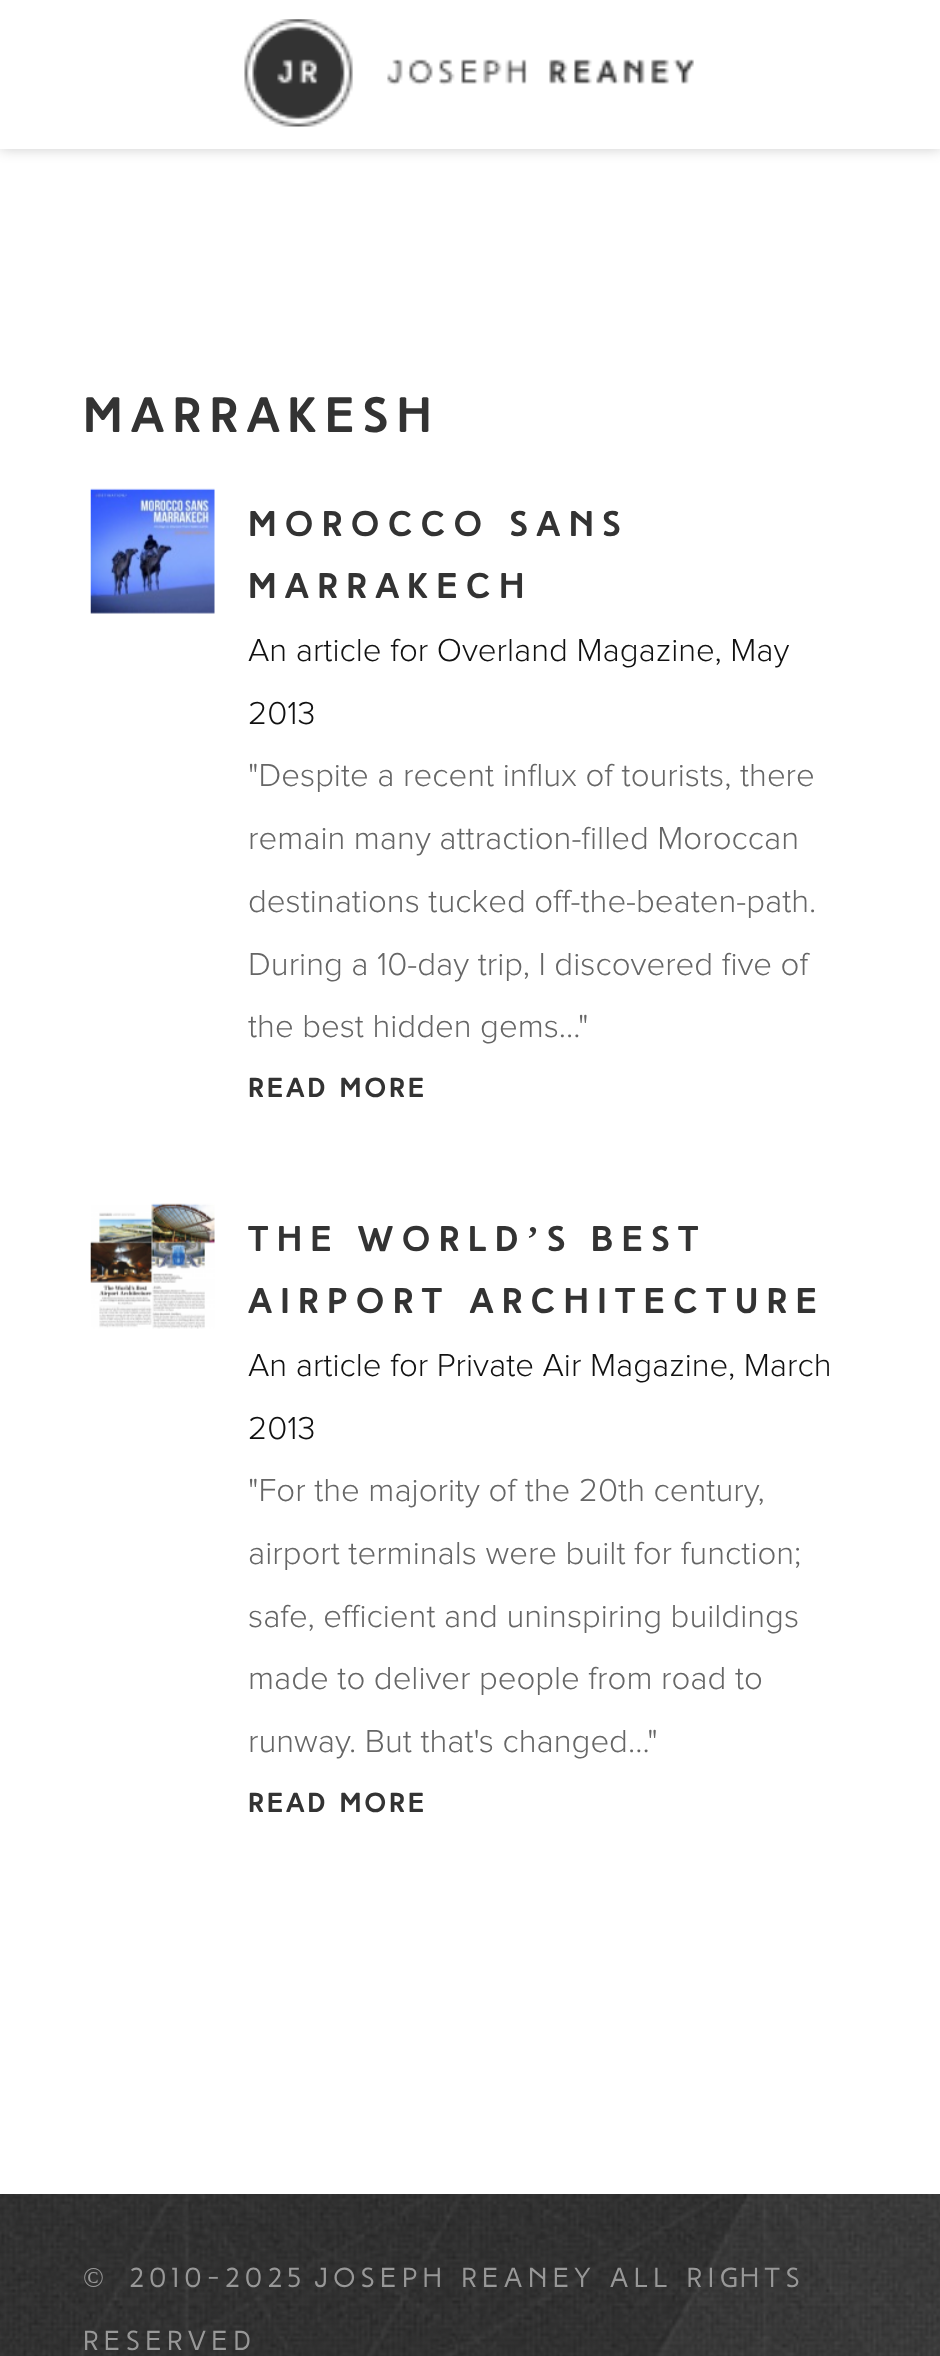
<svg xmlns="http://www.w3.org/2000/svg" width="940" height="2356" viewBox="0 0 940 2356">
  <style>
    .t1 { font: bold 49.5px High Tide; letter-spacing: 8.25px; fill: #333; }
    .t2 { font: bold 35.75px High Tide; letter-spacing: 8.25px; fill: #333; }
    .t3 { font: 300 33px Proxima Nova; fill: #111; }
    .t4 { font: 300 33px Proxima Nova; fill: #666; }
    .t5 { font: bold 27.5px High Tide; letter-spacing: 2.75px; fill: #333; }
    .t6 { font: 27.5px High Tide; letter-spacing: 5.5px; fill: #989898; }
  </style>
  <rect width="100%" height="100%" fill="#fff"/>
  <rect x="0" y="0" width="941" height="149" fill="#00000033" filter="blur(7px)"/>
  <rect x="0" y="0" width="940" height="149" fill="#fff"/>
  <image x="244" y="19" width="450" height="108" href="images/1.png"/>
  <text x="83" y="432" class="t1">MARRAKESH</text>
  <image x="90" y="488" width="125" height="126" href="images/2.png"/>
  <text x="248" y="536" class="t2">MOROCCO SANS</text>
  <text x="248" y="598" class="t2">MARRAKECH</text>
  <text x="248" y="661" class="t3">An article for Overland Magazine, May</text>
  <text x="248" y="724" class="t3">2013</text>
  <text x="248" y="786" class="t4">"Despite a recent influx of tourists, there</text>
  <text x="248" y="849" class="t4">remain many attraction-filled Moroccan</text>
  <text x="248" y="912" class="t4">destinations tucked off-the-beaten-path.</text>
  <text x="248" y="975" class="t4">During a 10-day trip, I discovered five of</text>
  <text x="248" y="1037" class="t4">the best hidden gems..."</text>
  <text x="248" y="1097" class="t5">READ MORE</text>
  <image x="90" y="1203" width="125" height="126" href="images/3.png"/>
  <text x="248" y="1251" word-spacing="-2" class="t2">THE WORLD’S BEST</text>
  <text x="248" y="1313" class="t2">AIRPORT ARCHITECTURE</text>
  <text x="248" y="1376" class="t3">An article for Private Air Magazine, March</text>
  <text x="248" y="1439" class="t3">2013</text>
  <text x="248" y="1501" class="t4">"For the majority of the 20th century,</text>
  <text x="248" y="1564" class="t4">airport terminals were built for function;</text>
  <text x="248" y="1627" class="t4">safe, efficient and uninspiring buildings</text>
  <text x="248" y="1689" class="t4">made to deliver people from road to</text>
  <text x="248" y="1752" class="t4">runway. But that's changed..."</text>
  <text x="248" y="1812" class="t5">READ MORE</text>
  <image x="0" y="2194" width="940" height="162" href="images/4.png"/>
  <text x="83" y="2287" word-spacing="6" class="t6">© 2010-2025</text>
  <text x="314" y="2287" class="t6">JOSEPH REANEY ALL RIGHTS</text>
  <text x="83" y="2350" class="t6">RESERVED</text>
</svg>
